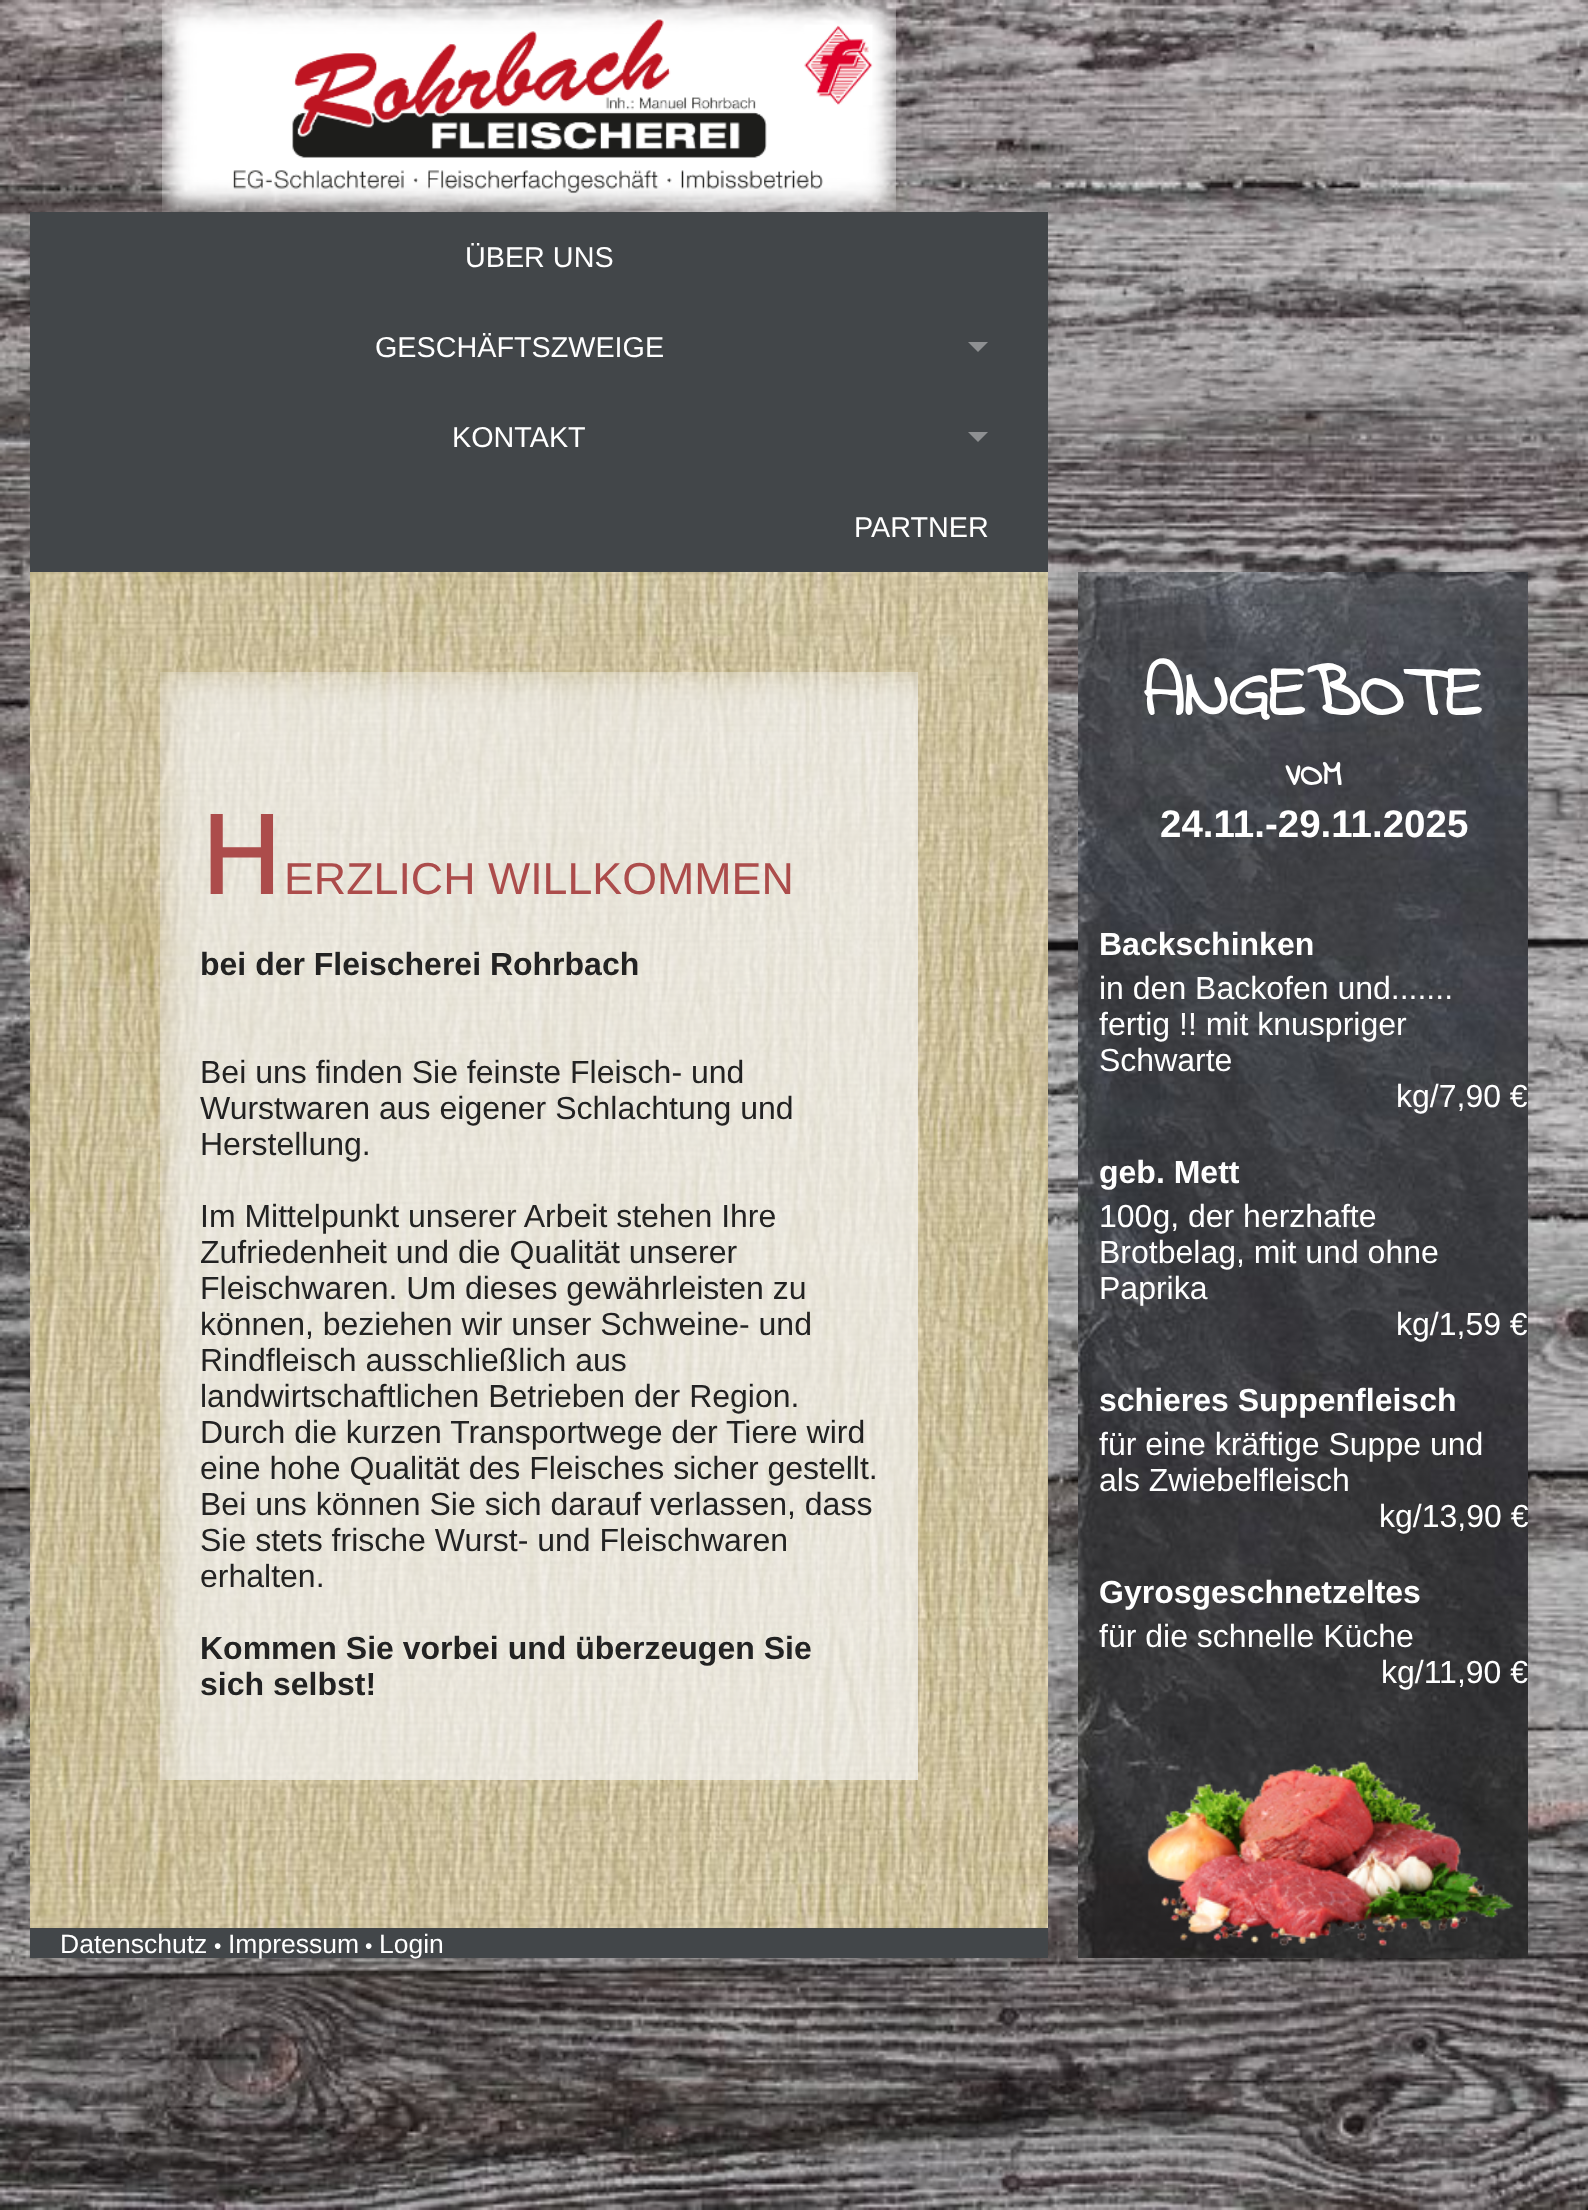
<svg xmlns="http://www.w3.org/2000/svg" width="1588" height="2210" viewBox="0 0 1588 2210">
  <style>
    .t1 { font: 28.75px Liberation Sans; fill: #fff; }
    .t2 { font: 500 112px Noto Sans; fill: #ac4c4b; }
    .t3 { font: 44.75px Liberation Sans; fill: #ac4c4b; }
    .t4 { font: bold 32px Liberation Sans; fill: #222; }
    .t5 { font: 32px Liberation Sans; fill: #222; }
    .t6 { font: bold 72px Indie Flower; fill: #fff; }
    .t7 { font: bold 36px Indie Flower; fill: #fff; }
    .t8 { font: bold 38.5px Liberation Sans; fill: #fff; }
    .t9 { font: bold 32px Liberation Sans; fill: #fff; }
    .t10 { font: 32px Liberation Sans; fill: #fff; }
    .t11 { font: 26.5px Liberation Sans; fill: #fff; }
    .t12 { font: 21px Liberation Sans; fill: #fff; }
  </style>
  <rect width="100%" height="100%" fill="#fff"/>
  <image x="0" y="0" width="1588" height="2210" href="images/1.png"/>
  <image x="162" y="0" width="734" height="212" href="images/2.png"/>
  <rect x="30" y="212" width="1018" height="360" fill="#424649"/>
  <text x="465" y="267" class="t1">ÜBER UNS</text>
  <text x="375" y="357" class="t1">GESCHÄFTSZWEIGE</text>
  <path d="M968 342H988L978 352Z" fill="#8e9092"/>
  <text x="452" y="447" class="t1">KONTAKT</text>
  <path d="M968 432H988L978 442Z" fill="#8e9092"/>
  <text x="854" y="537" class="t1">PARTNER</text>
  <image x="30" y="572" width="1018" height="1356" href="images/3.png"/>
  <image x="160" y="672" width="758" height="1108" href="images/4.png"/>
  <text x="200" y="894" class="t2">H</text>
  <text x="284" y="894" class="t3">ERZLICH WILLKOMMEN</text>
  <text x="200" y="975" class="t4">bei der Fleischerei Rohrbach</text>
  <text x="200" y="1083" class="t5">Bei uns finden Sie feinste Fleisch- und</text>
  <text x="200" y="1119" class="t5">Wurstwaren aus eigener Schlachtung und</text>
  <text x="200" y="1155" class="t5">Herstellung.</text>
  <text x="200" y="1227" class="t5">Im Mittelpunkt unserer Arbeit stehen Ihre</text>
  <text x="200" y="1263" class="t5">Zufriedenheit und die Qualität unserer</text>
  <text x="200" y="1299" class="t5">Fleischwaren. Um dieses gewährleisten zu</text>
  <text x="200" y="1335" class="t5">können, beziehen wir unser Schweine- und</text>
  <text x="200" y="1371" class="t5">Rindfleisch ausschließlich aus</text>
  <text x="200" y="1407" class="t5">landwirtschaftlichen Betrieben der Region.</text>
  <text x="200" y="1443" class="t5">Durch die kurzen Transportwege der Tiere wird</text>
  <text x="200" y="1479" class="t5">eine hohe Qualität des Fleisches sicher gestellt.</text>
  <text x="200" y="1515" class="t5">Bei uns können Sie sich darauf verlassen, dass</text>
  <text x="200" y="1551" class="t5">Sie stets frische Wurst- und Fleischwaren</text>
  <text x="200" y="1587" class="t5">erhalten.</text>
  <text x="200" y="1659" class="t4">Kommen Sie vorbei und überzeugen Sie</text>
  <text x="200" y="1695" class="t4">sich selbst!</text>
  <image x="1078" y="572" width="450" height="1386" href="images/5.png"/>
  <text x="1143" y="715" class="t6">ANGEBOTE</text>
  <text x="1285" y="785" class="t7">VOM</text>
  <text x="1160" y="837" class="t8">24.11.-29.11.2025</text>
  <text x="1099" y="955" class="t9">Backschinken</text>
  <text x="1099" y="999" class="t10">in den Backofen und.......</text>
  <text x="1099" y="1035" class="t10">fertig !! mit knuspriger</text>
  <text x="1099" y="1071" class="t10">Schwarte</text>
  <text x="1396" y="1107" class="t10">kg/7,90 €</text>
  <text x="1099" y="1183" class="t9">geb. Mett</text>
  <text x="1099" y="1227" class="t10">100g, der herzhafte</text>
  <text x="1099" y="1263" class="t10">Brotbelag, mit und ohne</text>
  <text x="1099" y="1299" class="t10">Paprika</text>
  <text x="1396" y="1335" class="t10">kg/1,59 €</text>
  <text x="1099" y="1411" class="t9">schieres Suppenfleisch</text>
  <text x="1099" y="1455" class="t10">für eine kräftige Suppe und</text>
  <text x="1099" y="1491" class="t10">als Zwiebelfleisch</text>
  <text x="1379" y="1527" class="t10">kg/13,90 €</text>
  <text x="1099" y="1603" class="t9">Gyrosgeschnetzeltes</text>
  <text x="1099" y="1647" class="t10">für die schnelle Küche</text>
  <text x="1381" y="1683" class="t10">kg/11,90 €</text>
  <image x="1147" y="1760" width="367" height="186" href="images/6.png"/>
  <rect x="30" y="1928" width="1018" height="30" fill="#424649"/>
  <text x="60" y="1953" class="t11">Datenschutz</text>
  <text x="214" y="1953" class="t12">•</text>
  <text x="228" y="1953" class="t11">Impressum</text>
  <text x="365" y="1953" class="t12">•</text>
  <text x="379" y="1953" class="t11">Login</text>
</svg>
